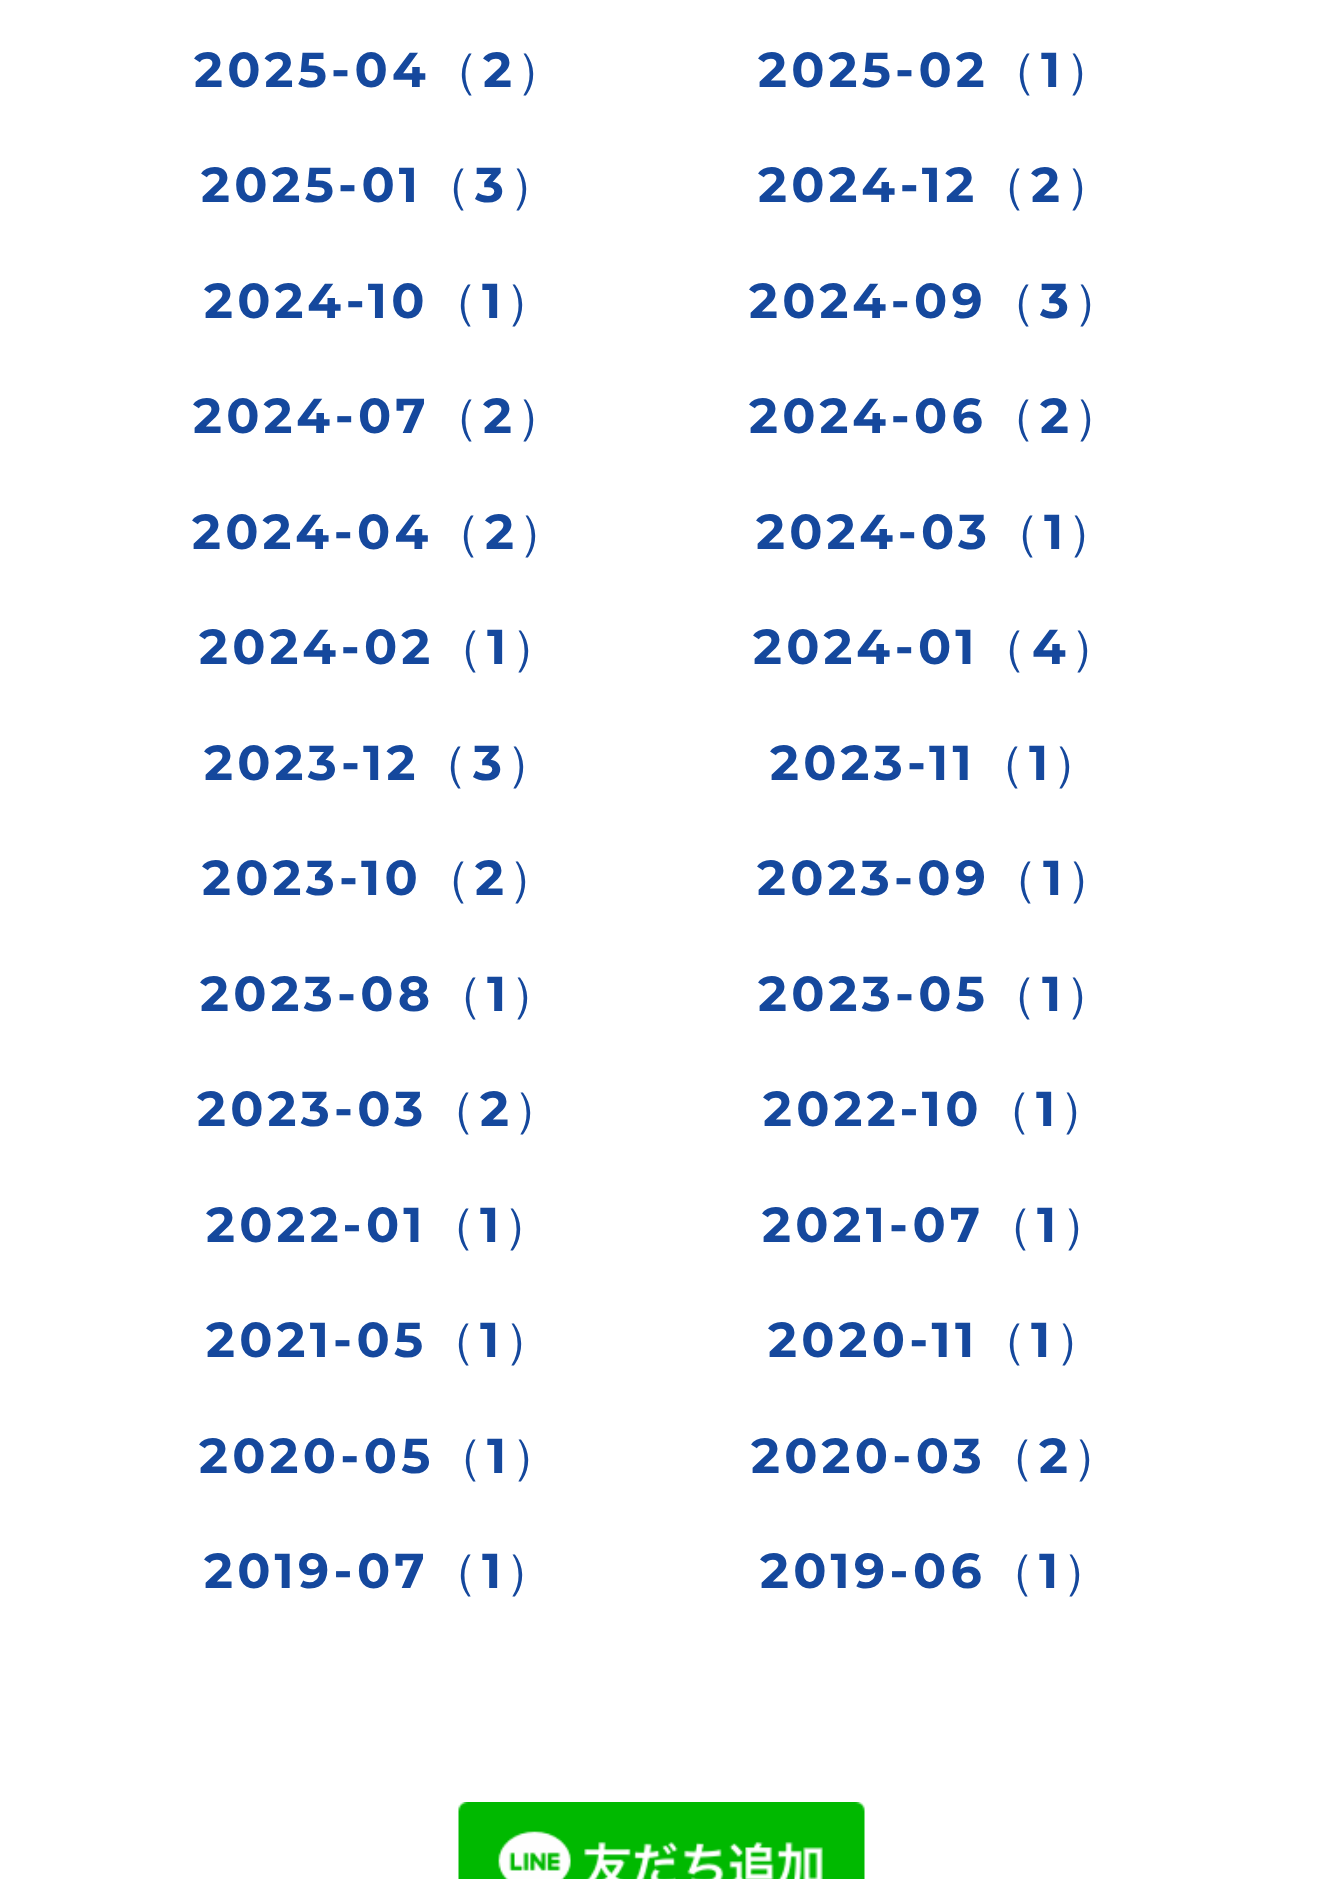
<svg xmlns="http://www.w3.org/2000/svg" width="1319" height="1879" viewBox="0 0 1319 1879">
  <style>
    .t1 { font: 100 49px Montserrat; letter-spacing: 4.25px; fill: #15489d; }
    .t2 { font: 500 49px WenQuanYi Zen Hei; letter-spacing: 4.25px; fill: #15489d; }
  </style>
  <rect width="100%" height="100%" fill="#fff"/>
  <text x="194" y="87" class="t1">2025-04</text>
  <text x="430" y="87" class="t2">（</text>
  <text x="483" y="87" class="t1">2</text>
  <text x="516" y="87" class="t2">）</text>
  <text x="758" y="87" class="t1">2025-02</text>
  <text x="988" y="87" class="t2">（</text>
  <text x="1041" y="87" class="t1">1</text>
  <text x="1065" y="87" class="t2">）</text>
  <text x="201" y="202" class="t1">2025-01</text>
  <text x="422" y="202" class="t2">（</text>
  <text x="475" y="202" class="t1">3</text>
  <text x="509" y="202" class="t2">）</text>
  <text x="758" y="202" class="t1">2024-12</text>
  <text x="978" y="202" class="t2">（</text>
  <text x="1031" y="202" class="t1">2</text>
  <text x="1065" y="202" class="t2">）</text>
  <text x="204" y="318" class="t1">2024-10</text>
  <text x="429" y="318" class="t2">（</text>
  <text x="482" y="318" class="t1">1</text>
  <text x="505" y="318" class="t2">）</text>
  <text x="749" y="318" class="t1">2024-09</text>
  <text x="987" y="318" class="t2">（</text>
  <text x="1040" y="318" class="t1">3</text>
  <text x="1073" y="318" class="t2">）</text>
  <text x="193" y="433" class="t1">2024-07</text>
  <text x="430" y="433" class="t2">（</text>
  <text x="483" y="433" class="t1">2</text>
  <text x="516" y="433" class="t2">）</text>
  <text x="749" y="433" class="t1">2024-06</text>
  <text x="987" y="433" class="t2">（</text>
  <text x="1040" y="433" class="t1">2</text>
  <text x="1073" y="433" class="t2">）</text>
  <text x="192" y="549" class="t1">2024-04</text>
  <text x="432" y="549" class="t2">（</text>
  <text x="485" y="549" class="t1">2</text>
  <text x="518" y="549" class="t2">）</text>
  <text x="756" y="549" class="t1">2024-03</text>
  <text x="991" y="549" class="t2">（</text>
  <text x="1044" y="549" class="t1">1</text>
  <text x="1067" y="549" class="t2">）</text>
  <text x="199" y="664" class="t1">2024-02</text>
  <text x="434" y="664" class="t2">（</text>
  <text x="487" y="664" class="t1">1</text>
  <text x="511" y="664" class="t2">）</text>
  <text x="753" y="664" class="t1">2024-01</text>
  <text x="978" y="664" class="t2">（</text>
  <text x="1032" y="664" class="t1">4</text>
  <text x="1070" y="664" class="t2">）</text>
  <text x="204" y="780" class="t1">2023-12</text>
  <text x="419" y="780" class="t2">（</text>
  <text x="473" y="780" class="t1">3</text>
  <text x="506" y="780" class="t2">）</text>
  <text x="770" y="780" class="t1">2023-11</text>
  <text x="976" y="780" class="t2">（</text>
  <text x="1029" y="780" class="t1">1</text>
  <text x="1052" y="780" class="t2">）</text>
  <text x="202" y="895" class="t1">2023-10</text>
  <text x="422" y="895" class="t2">（</text>
  <text x="475" y="895" class="t1">2</text>
  <text x="508" y="895" class="t2">）</text>
  <text x="757" y="895" class="t1">2023-09</text>
  <text x="989" y="895" class="t2">（</text>
  <text x="1043" y="895" class="t1">1</text>
  <text x="1066" y="895" class="t2">）</text>
  <text x="200" y="1011" class="t1">2023-08</text>
  <text x="434" y="1011" class="t2">（</text>
  <text x="487" y="1011" class="t1">1</text>
  <text x="510" y="1011" class="t2">）</text>
  <text x="758" y="1011" class="t1">2023-05</text>
  <text x="988" y="1011" class="t2">（</text>
  <text x="1042" y="1011" class="t1">1</text>
  <text x="1065" y="1011" class="t2">）</text>
  <text x="197" y="1126" class="t1">2023-03</text>
  <text x="427" y="1126" class="t2">（</text>
  <text x="480" y="1126" class="t1">2</text>
  <text x="513" y="1126" class="t2">）</text>
  <text x="763" y="1126" class="t1">2022-10</text>
  <text x="983" y="1126" class="t2">（</text>
  <text x="1036" y="1126" class="t1">1</text>
  <text x="1059" y="1126" class="t2">）</text>
  <text x="206" y="1242" class="t1">2022-01</text>
  <text x="427" y="1242" class="t2">（</text>
  <text x="480" y="1242" class="t1">1</text>
  <text x="503" y="1242" class="t2">）</text>
  <text x="762" y="1242" class="t1">2021-07</text>
  <text x="984" y="1242" class="t2">（</text>
  <text x="1037" y="1242" class="t1">1</text>
  <text x="1061" y="1242" class="t2">）</text>
  <text x="206" y="1357" class="t1">2021-05</text>
  <text x="427" y="1357" class="t2">（</text>
  <text x="480" y="1357" class="t1">1</text>
  <text x="504" y="1357" class="t2">）</text>
  <text x="768" y="1357" class="t1">2020-11</text>
  <text x="978" y="1357" class="t2">（</text>
  <text x="1031" y="1357" class="t1">1</text>
  <text x="1055" y="1357" class="t2">）</text>
  <text x="199" y="1473" class="t1">2020-05</text>
  <text x="434" y="1473" class="t2">（</text>
  <text x="487" y="1473" class="t1">1</text>
  <text x="511" y="1473" class="t2">）</text>
  <text x="751" y="1473" class="t1">2020-03</text>
  <text x="986" y="1473" class="t2">（</text>
  <text x="1039" y="1473" class="t1">2</text>
  <text x="1072" y="1473" class="t2">）</text>
  <text x="204" y="1588" class="t1">2019-07</text>
  <text x="429" y="1588" class="t2">（</text>
  <text x="482" y="1588" class="t1">1</text>
  <text x="505" y="1588" class="t2">）</text>
  <text x="760" y="1588" class="t1">2019-06</text>
  <text x="986" y="1588" class="t2">（</text>
  <text x="1039" y="1588" class="t1">1</text>
  <text x="1062" y="1588" class="t2">）</text>
  <image x="458" y="1802" width="407" height="77" href="images/1.png"/>
</svg>
